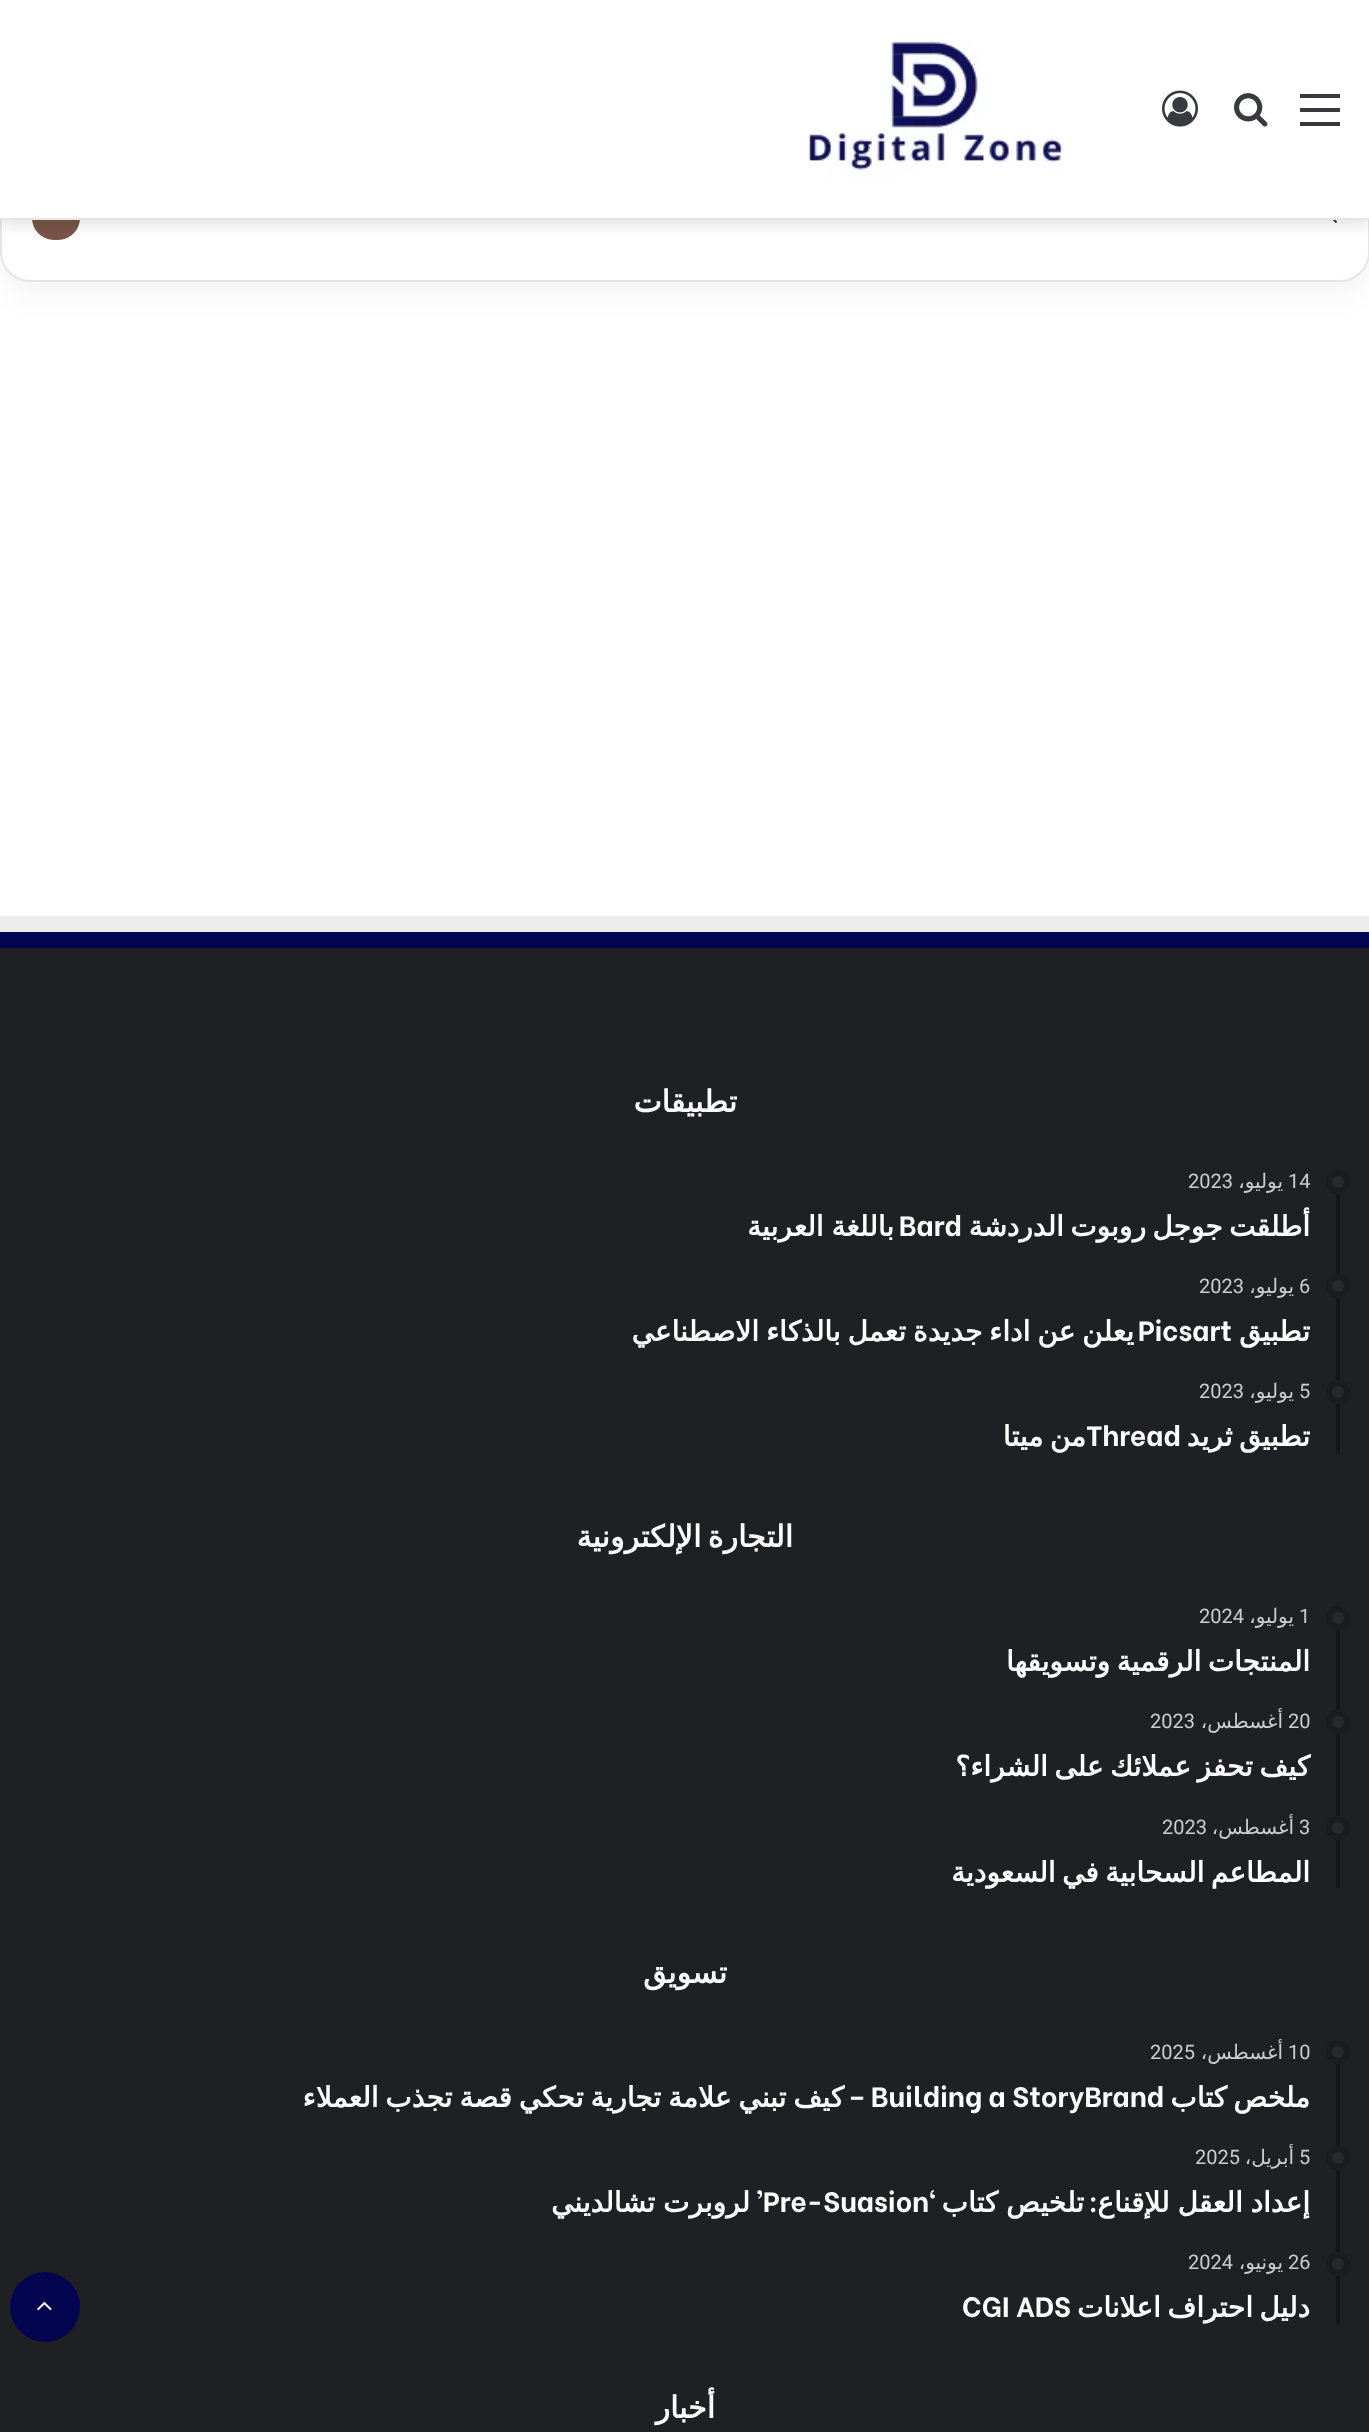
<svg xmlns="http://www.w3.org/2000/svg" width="1369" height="2432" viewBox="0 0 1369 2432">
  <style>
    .t1 { font: bold 30px DejaVu Sans; direction: rtl; fill: #fff; }
    .t2 { font: 20px Roboto; fill: #ccc; }
    .t3 { font: 20px DejaVu Sans; direction: rtl; fill: #ccc; }
    .t4 { font: bold 28px DejaVu Sans; direction: rtl; fill: #fff; }
    .t5 { font: bold 28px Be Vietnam; fill: #fff; }
    .t6 { font: bold 28px Be Vietnam; direction: rtl; fill: #fff; }
  </style>
  <rect width="100%" height="100%" fill="#fff"/>
  <rect x="0" y="-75" width="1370" height="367" rx="30" fill="#0000000d" filter="blur(15px)"/>
  <rect x="1" y="-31" width="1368" height="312" rx="29" fill="#fff" stroke="#e5e5e5" stroke-width="2"/>
  <image x="1332" y="220" width="6" height="3" href="images/1.png"/>
  <rect x="32" y="196" width="48" height="44" rx="22" fill="#795548"/>
  <rect x="0" y="6" width="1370" height="220" fill="#0000001a" filter="blur(7px)"/>
  <rect x="0" y="0" width="1369" height="218" fill="#fff"/>
  <rect x="0" y="218" width="1369" height="2" fill="#e6e6e6"/>
  <rect x="1300" y="108" width="40" height="4" fill="#37393e"/>
  <rect x="1300" y="94" width="40" height="4" fill="#37393e"/>
  <rect x="1300" y="122" width="40" height="4" fill="#37393e"/>
  <image x="1234" y="93" width="34" height="34" href="images/2.png"/>
  <image x="1162" y="90" width="36" height="37" href="images/3.png"/>
  <image x="807" y="40" width="258" height="139" href="images/4.png"/>
  <rect x="0" y="948" width="1369" height="1484" fill="#1f2024"/>
  <rect x="0" y="916" width="1369" height="16" fill="#ededed"/>
  <rect x="0" y="932" width="1369" height="16" fill="#040551"/>
  <text x="737" y="1112" class="t1">تطبيقات</text>
  <rect x="1336" y="1170" width="4" height="284" fill="#161619"/>
  <circle cx="1338" cy="1182" r="12" fill="#27292d"/>
  <circle cx="1338" cy="1182" r="9" fill="none" stroke="#0000004d" stroke-width="6"/>
  <text x="1288" y="1188" class="t2">14</text>
  <text x="1283" y="1188" class="t3">يوليو،</text>
  <text x="1188" y="1188" class="t2">2023</text>
  <text x="1310" y="1236" word-spacing="-2.5" class="t4">أطلقت جوجل روبوت الدردشة</text>
  <text x="899" y="1236" class="t5">Bard</text>
  <text x="894" y="1236" word-spacing="-1" class="t4">باللغة العربية</text>
  <circle cx="1338" cy="1286" r="12" fill="#27292d"/>
  <circle cx="1338" cy="1286" r="9" fill="none" stroke="#0000004d" stroke-width="6"/>
  <text x="1299" y="1293" class="t2">6</text>
  <text x="1294" y="1293" class="t3">يوليو،</text>
  <text x="1199" y="1293" class="t2">2023</text>
  <text x="1310" y="1341" class="t4">تطبيق</text>
  <text x="1134" y="1341" word-spacing="-2" class="t4">يعلن عن اداء جديدة تعمل بالذكاء الاصطناعي</text>
  <text x="1138" y="1341" class="t5">Picsart</text>
  <circle cx="1338" cy="1392" r="12" fill="#27292d"/>
  <circle cx="1338" cy="1392" r="9" fill="none" stroke="#0000004d" stroke-width="6"/>
  <text x="1299" y="1398" class="t2">5</text>
  <text x="1294" y="1398" class="t3">يوليو،</text>
  <text x="1199" y="1398" class="t2">2023</text>
  <text x="1310" y="1446" word-spacing="-2.5" class="t4">تطبيق ثريد</text>
  <text x="1086" y="1446" class="t5">Thread</text>
  <text x="1086" y="1446" word-spacing="-2.5" class="t4">من ميتا</text>
  <text x="793" y="1547" word-spacing="-3" class="t1">التجارة الإلكترونية</text>
  <rect x="1336" y="1606" width="4" height="282" fill="#161619"/>
  <circle cx="1338" cy="1618" r="12" fill="#27292d"/>
  <circle cx="1338" cy="1618" r="9" fill="none" stroke="#0000004d" stroke-width="6"/>
  <text x="1299" y="1623" class="t2">1</text>
  <text x="1294" y="1623" class="t3">يوليو،</text>
  <text x="1199" y="1623" class="t2">2024</text>
  <text x="1310" y="1671" word-spacing="-2.5" class="t4">المنتجات الرقمية وتسويقها</text>
  <circle cx="1338" cy="1722" r="12" fill="#27292d"/>
  <circle cx="1338" cy="1722" r="9" fill="none" stroke="#0000004d" stroke-width="6"/>
  <text x="1288" y="1728" class="t2">20</text>
  <text x="1283" y="1728" class="t3">أغسطس،</text>
  <text x="1150" y="1728" class="t2">2023</text>
  <text x="1310" y="1776" word-spacing="-2.5" class="t4">كيف تحفز عملائك على الشراء؟</text>
  <circle cx="1338" cy="1828" r="12" fill="#27292d"/>
  <circle cx="1338" cy="1828" r="9" fill="none" stroke="#0000004d" stroke-width="6"/>
  <text x="1299" y="1834" class="t2">3</text>
  <text x="1294" y="1834" class="t3">أغسطس،</text>
  <text x="1162" y="1834" class="t2">2023</text>
  <text x="1310" y="1882" word-spacing="-2.5" class="t4">المطاعم السحابية في السعودية</text>
  <text x="727" y="1983" class="t1">تسويق</text>
  <rect x="1336" y="2040" width="4" height="284" fill="#161619"/>
  <circle cx="1338" cy="2052" r="12" fill="#27292d"/>
  <circle cx="1338" cy="2052" r="9" fill="none" stroke="#0000004d" stroke-width="6"/>
  <text x="1288" y="2059" class="t2">10</text>
  <text x="1283" y="2059" class="t3">أغسطس،</text>
  <text x="1150" y="2059" class="t2">2025</text>
  <text x="1310" y="2107" word-spacing="-2.5" class="t4">ملخص كتاب</text>
  <text x="871" y="2107" class="t5">Building a StoryBrand</text>
  <text x="844" y="2107" word-spacing="-2" class="t4">كيف تبني علامة تجارية تحكي قصة تجذب العملاء</text>
  <text x="866" y="2107" class="t6">–</text>
  <circle cx="1338" cy="2158" r="12" fill="#27292d"/>
  <circle cx="1338" cy="2158" r="9" fill="none" stroke="#0000004d" stroke-width="6"/>
  <text x="1299" y="2164" class="t2">5</text>
  <text x="1294" y="2164" class="t3">أبريل،</text>
  <text x="1195" y="2164" class="t2">2025</text>
  <text x="1310" y="2212" word-spacing="-1" class="t4">إعداد العقل للإقناع</text>
  <text x="1098" y="2212" class="t6">:</text>
  <text x="1084" y="2212" word-spacing="-1" class="t4">تلخيص كتاب</text>
  <text x="937" y="2212" class="t6">‘</text>
  <text x="763" y="2212" class="t5">Pre-Suasion</text>
  <text x="763" y="2212" class="t6">’</text>
  <text x="750" y="2212" word-spacing="-1" class="t4">لروبرت تشالديني</text>
  <circle cx="1338" cy="2264" r="12" fill="#27292d"/>
  <circle cx="1338" cy="2264" r="9" fill="none" stroke="#0000004d" stroke-width="6"/>
  <text x="1288" y="2269" class="t2">26</text>
  <text x="1283" y="2269" class="t3">يونيو،</text>
  <text x="1188" y="2269" class="t2">2024</text>
  <text x="1310" y="2317" word-spacing="-2.5" class="t4">دليل احتراف اعلانات</text>
  <text x="962" y="2317" class="t5">CGI ADS</text>
  <text x="715" y="2418" class="t1">أخبار</text>
  <circle cx="45" cy="2307" r="35" fill="#040551"/>
  <image x="37" y="2301" width="15" height="10" href="images/5.png"/>
</svg>
